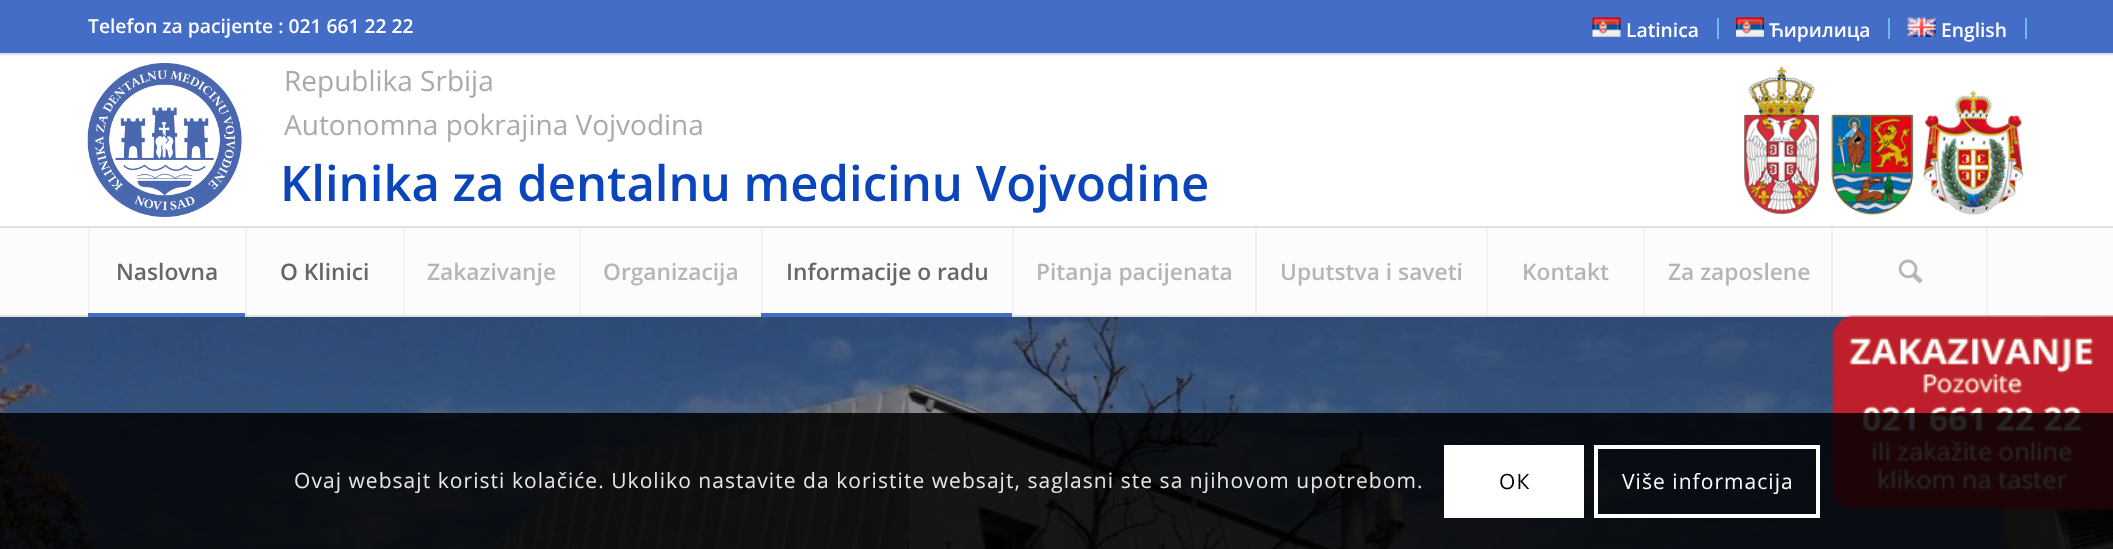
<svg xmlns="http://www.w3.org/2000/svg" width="2113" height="549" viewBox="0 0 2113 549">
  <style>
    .t1 { font: 600 19.25px Open Sans; fill: #fff; }
    .t2 { font: 28px Open Sans; fill: #aaa; }
    .t3 { font: 600 49px Open Sans; fill: #0b45bb; }
    .t4 { font: 600 22.75px Open Sans; fill: #666; }
    .t5 { font: 600 22.75px Open Sans; fill: #b5b5b5; }
    .t6 { font: 21px Open Sans; letter-spacing: 1.05px; fill: #e7e7e7; }
    .t7 { font: 21px Open Sans; letter-spacing: 1.05px; fill: #000; }
    .t8 { font: 21px Open Sans; letter-spacing: 1.05px; fill: #fff; }
  </style>
  <rect width="100%" height="100%" fill="#fff"/>
  <rect x="0" y="0" width="2113" height="53" fill="#446dc7"/>
  <rect x="0" y="53" width="2113" height="2" fill="#e1e1e1"/>
  <text x="88" y="33" class="t1">Telefon za pacijente : 021 661 22 22</text>
  <rect x="1717" y="18" width="2" height="21" fill="#6abbe6"/>
  <image x="1592" y="17" width="29" height="20" href="images/1.png"/>
  <text x="1626" y="37" class="t1">Latinica</text>
  <rect x="1888" y="18" width="2" height="21" fill="#6abbe6"/>
  <image x="1736" y="17" width="28" height="20" href="images/2.png"/>
  <text x="1769" y="37" class="t1">Ћирилица</text>
  <rect x="2025" y="18" width="2" height="21" fill="#6abbe6"/>
  <image x="1907" y="17" width="29" height="20" href="images/3.png"/>
  <text x="1941" y="37" class="t1">English</text>
  <rect x="0" y="315" width="2113" height="2" fill="#e1e1e1"/>
  <image x="87" y="63" width="155" height="154" href="images/4.png"/>
  <text x="284" y="91" class="t2">Republika Srbija</text>
  <text x="284" y="135" class="t2">Autonomna pokrajina Vojvodina</text>
  <text x="280" y="201" class="t3">Klinika za dentalnu medicinu Vojvodine</text>
  <image x="1744" y="66" width="280" height="149" href="images/5.png"/>
  <rect x="0" y="228" width="2113" height="87" fill="#fcfcfc"/>
  <rect x="0" y="226" width="2113" height="2" fill="#e1e1e1"/>
  <rect x="88" y="228" width="2" height="87" fill="#f2f2f2"/>
  <text x="116" y="280" class="t4">Naslovna</text>
  <rect x="88" y="313" width="157" height="4" fill="#446dc7"/>
  <rect x="245" y="228" width="2" height="87" fill="#f2f2f2"/>
  <text x="280" y="280" class="t4">O Klinici</text>
  <rect x="403" y="228" width="2" height="87" fill="#f2f2f2"/>
  <text x="427" y="280" class="t5">Zakazivanje</text>
  <rect x="579" y="228" width="2" height="87" fill="#f2f2f2"/>
  <text x="603" y="280" class="t5">Organizacija</text>
  <rect x="761" y="228" width="2" height="87" fill="#f2f2f2"/>
  <text x="786" y="280" class="t4">Informacije o radu</text>
  <rect x="761" y="313" width="251" height="4" fill="#446dc7"/>
  <rect x="1012" y="228" width="2" height="87" fill="#f2f2f2"/>
  <text x="1036" y="280" class="t5">Pitanja pacijenata</text>
  <rect x="1255" y="228" width="2" height="87" fill="#f2f2f2"/>
  <text x="1280" y="280" class="t5">Uputstva i saveti</text>
  <rect x="1486" y="228" width="2" height="87" fill="#f2f2f2"/>
  <text x="1522" y="280" class="t5">Kontakt</text>
  <rect x="1643" y="228" width="2" height="87" fill="#f2f2f2"/>
  <text x="1668" y="280" class="t5">Za zaposlene</text>
  <rect x="1986" y="228" width="2" height="87" fill="#f2f2f2"/>
  <rect x="1831" y="228" width="2" height="87" fill="#f2f2f2"/>
  <image x="1898" y="259" width="25" height="24" href="images/6.png"/>
  <image x="0" y="317" width="2113" height="232" href="images/8.png"/>
  <image x="1832" y="315" width="281" height="195" href="images/7.png"/>
  <rect x="0" y="413" width="2113" height="136" fill="#000000d9"/>
  <text x="294" y="488" class="t6">Ovaj websajt koristi kolačiće. Ukoliko nastavite da koristite websajt, saglasni ste sa njihovom upotrebom.</text>
  <rect x="1444" y="445" width="140" height="73" fill="#fff"/>
  <text x="1499" y="489" class="t7">ОК</text>
  <rect x="1596" y="447" width="222" height="69" fill="none" stroke="#fff" stroke-width="4"/>
  <text x="1622" y="489" class="t8">Više informacija</text>
</svg>
